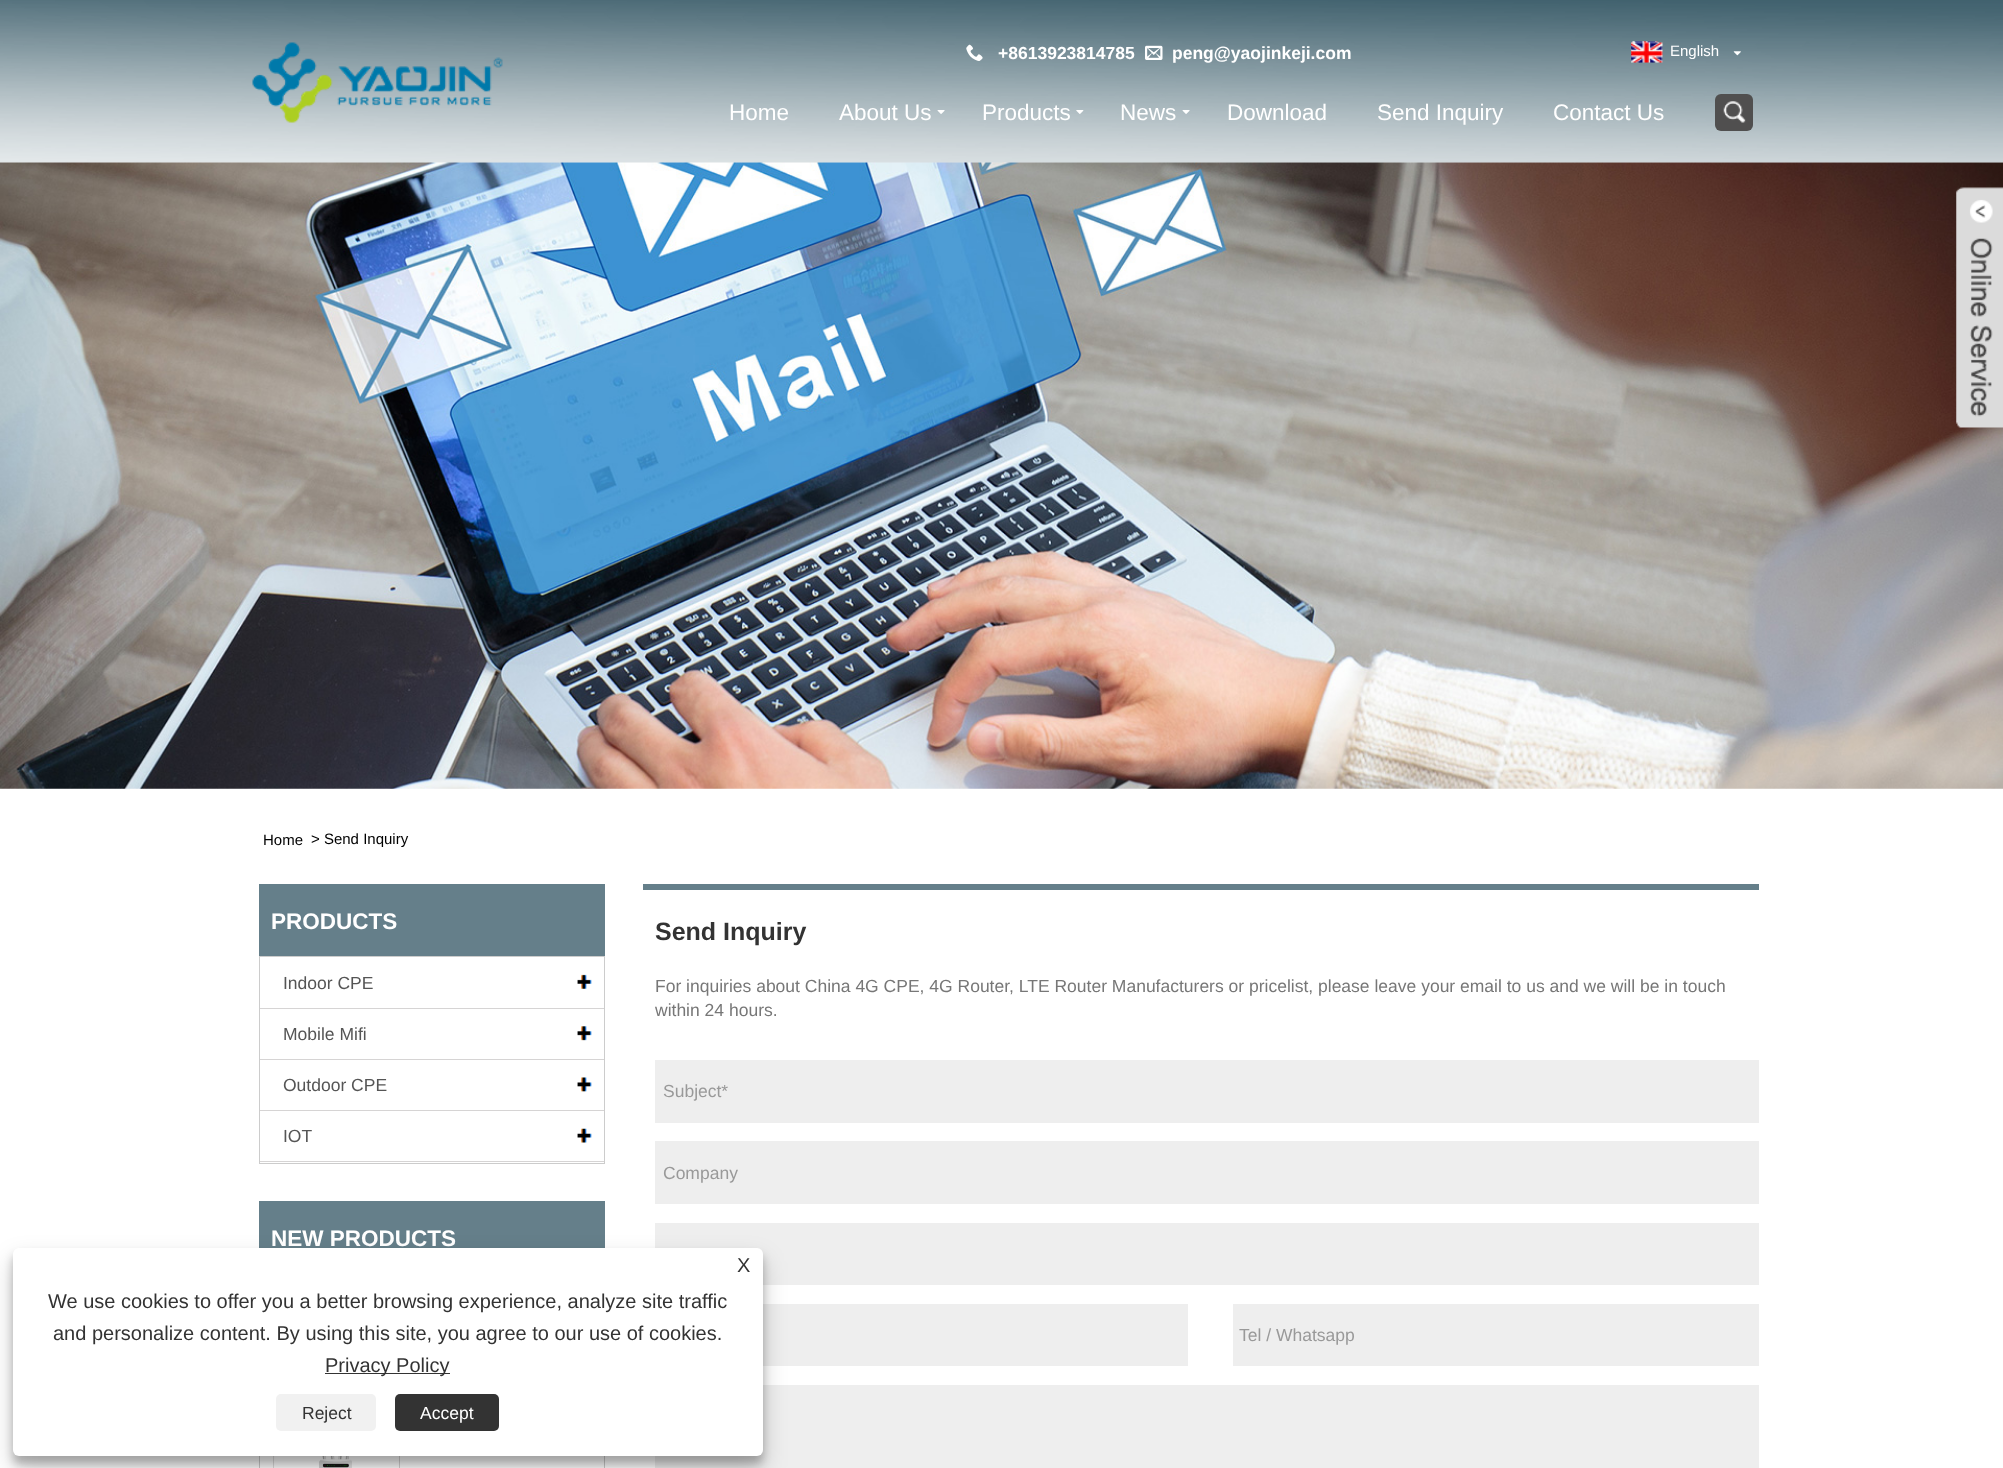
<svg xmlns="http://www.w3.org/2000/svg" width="2003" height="1468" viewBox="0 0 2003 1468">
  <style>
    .t1 { font: bold 17.5px Liberation Sans; fill: #fff; }
    .t2 { font: 15px Liberation Sans; fill: #fff; }
    .t3 { font: 22.5px Liberation Sans; fill: #fff; }
    .t4 { font: 15px Liberation Sans; fill: #000; }
    .t5 { font: bold 22.5px Liberation Sans; fill: #fff; }
    .t6 { font: 17.5px Liberation Sans; fill: #555; }
    .t7 { font: bold 25px Liberation Sans; fill: #333; }
    .t8 { font: 17.5px Liberation Sans; fill: #777; }
    .t9 { font: 17.5px Liberation Sans; fill: #999; }
    .t10 { font: 20px Liberation Sans; fill: #333; }
    .t11 { font: 17.5px Liberation Sans; fill: #333; }
    .t12 { font: 17.5px Liberation Sans; fill: #fff; }
  </style>
  <rect width="100%" height="100%" fill="#fff"/>
  <image x="0" y="162" width="2003" height="627" href="images/12.png"/>
  <image x="0" y="0" width="2003" height="163" href="images/1.png"/>
  <image x="252" y="42" width="251" height="81" href="images/2.png"/>
  <image x="966" y="44" width="17" height="17" href="images/3.png"/>
  <text x="998" y="59" class="t1">+8613923814785</text>
  <image x="1145" y="45" width="18" height="15" href="images/4.png"/>
  <text x="1172" y="59" class="t1">peng@yaojinkeji.com</text>
  <image x="1631" y="41" width="28" height="20" href="images/5.png"/>
  <image x="1631" y="42" width="32" height="21" href="images/6.png"/>
  <text x="1670" y="56" class="t2">English</text>
  <image x="1733" y="51" width="8" height="5" href="images/7.png"/>
  <text x="729" y="120" class="t3">Home</text>
  <text x="839" y="120" class="t3">About Us</text>
  <image x="937" y="110" width="8" height="4" href="images/8.png"/>
  <text x="982" y="120" class="t3">Products</text>
  <image x="1076" y="110" width="8" height="4" href="images/9.png"/>
  <text x="1120" y="120" class="t3">News</text>
  <image x="1182" y="110" width="8" height="4" href="images/10.png"/>
  <text x="1227" y="120" class="t3">Download</text>
  <text x="1377" y="120" class="t3">Send Inquiry</text>
  <text x="1553" y="120" class="t3">Contact Us</text>
  <rect x="1715" y="94" width="38" height="37" rx="6" fill="#504f4f"/>
  <image x="1723" y="101" width="23" height="22" href="images/11.png"/>
  <image x="1956" y="187" width="47" height="241" href="images/13.png"/>
  <text x="263" y="845" class="t4">Home</text>
  <text x="311" y="844" class="t4">&gt; Send Inquiry</text>
  <rect x="259" y="884" width="346" height="72" fill="#657f8a"/>
  <text x="271" y="929" class="t5">PRODUCTS</text>
  <rect x="259.5" y="956.5" width="345" height="207" fill="none" stroke="#ccc"/>
  <rect x="260" y="1008" width="344" height="1" fill="#d6d4d4"/>
  <text x="283" y="989" class="t6">Indoor CPE</text>
  <image x="577" y="974" width="15" height="15" href="images/14.png"/>
  <rect x="260" y="1059" width="344" height="1" fill="#d6d4d4"/>
  <text x="283" y="1040" class="t6">Mobile Mifi</text>
  <image x="577" y="1026" width="15" height="15" href="images/15.png"/>
  <rect x="260" y="1110" width="344" height="1" fill="#d6d4d4"/>
  <text x="283" y="1091" class="t6">Outdoor CPE</text>
  <image x="577" y="1077" width="15" height="15" href="images/16.png"/>
  <rect x="260" y="1161" width="344" height="1" fill="#d6d4d4"/>
  <text x="283" y="1142" class="t6">IOT</text>
  <image x="577" y="1128" width="15" height="15" href="images/17.png"/>
  <rect x="259" y="1201" width="346" height="47" fill="#657f8a"/>
  <text x="271" y="1246" class="t5">NEW PRODUCTS</text>
  <rect x="259.5" y="1274.5" width="345" height="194" fill="none" stroke="#ccc"/>
  <rect x="273.5" y="1430.5" width="126" height="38" fill="none" stroke="#d6d4d4"/>
  <image x="273" y="1456" width="79" height="12" href="images/18.png"/>
  <rect x="643" y="884" width="1116" height="6" fill="#657f8a"/>
  <text x="655" y="940" class="t7">Send Inquiry</text>
  <text x="655" y="992" class="t8">For inquiries about China 4G CPE, 4G Router, LTE Router Manufacturers or pricelist, please leave your email to us and we will be in touch</text>
  <text x="655" y="1016" class="t8">within 24 hours.</text>
  <rect x="655" y="1060" width="1104" height="63" fill="#eee"/>
  <text x="663" y="1097" class="t9">Subject*</text>
  <rect x="655" y="1141" width="1104" height="63" fill="#eee"/>
  <text x="663" y="1179" class="t9">Company</text>
  <rect x="655" y="1223" width="1104" height="62" fill="#eee"/>
  <rect x="763" y="1304" width="425" height="62" fill="#eee"/>
  <rect x="1233" y="1304" width="526" height="62" fill="#eee"/>
  <text x="1239" y="1341" class="t9">Tel / Whatsapp</text>
  <rect x="655" y="1385" width="1104" height="83" fill="#eee"/>
  <rect x="13" y="1255" width="750" height="209" rx="6" fill="#0000003b" filter="blur(4px)"/>
  <rect x="13" y="1260" width="750" height="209" rx="6" fill="#00000030" filter="blur(12.5px)"/>
  <rect x="13" y="1248" width="750" height="208" rx="6" fill="#fff"/>
  <text x="737" y="1272" class="t10">X</text>
  <text x="48" y="1308" class="t10">We use cookies to offer you a better browsing experience, analyze site traffic</text>
  <text x="53" y="1340" class="t10">and personalize content. By using this site, you agree to our use of cookies.</text>
  <rect x="325" y="1373" width="125" height="1" fill="#333"/>
  <text x="325" y="1372" class="t10">Privacy Policy</text>
  <rect x="276" y="1394" width="100" height="37" rx="5" fill="#f1f1f1"/>
  <text x="302" y="1419" class="t11">Reject</text>
  <rect x="395" y="1394" width="104" height="37" rx="5" fill="#333"/>
  <text x="420" y="1419" class="t12">Accept</text>
</svg>
